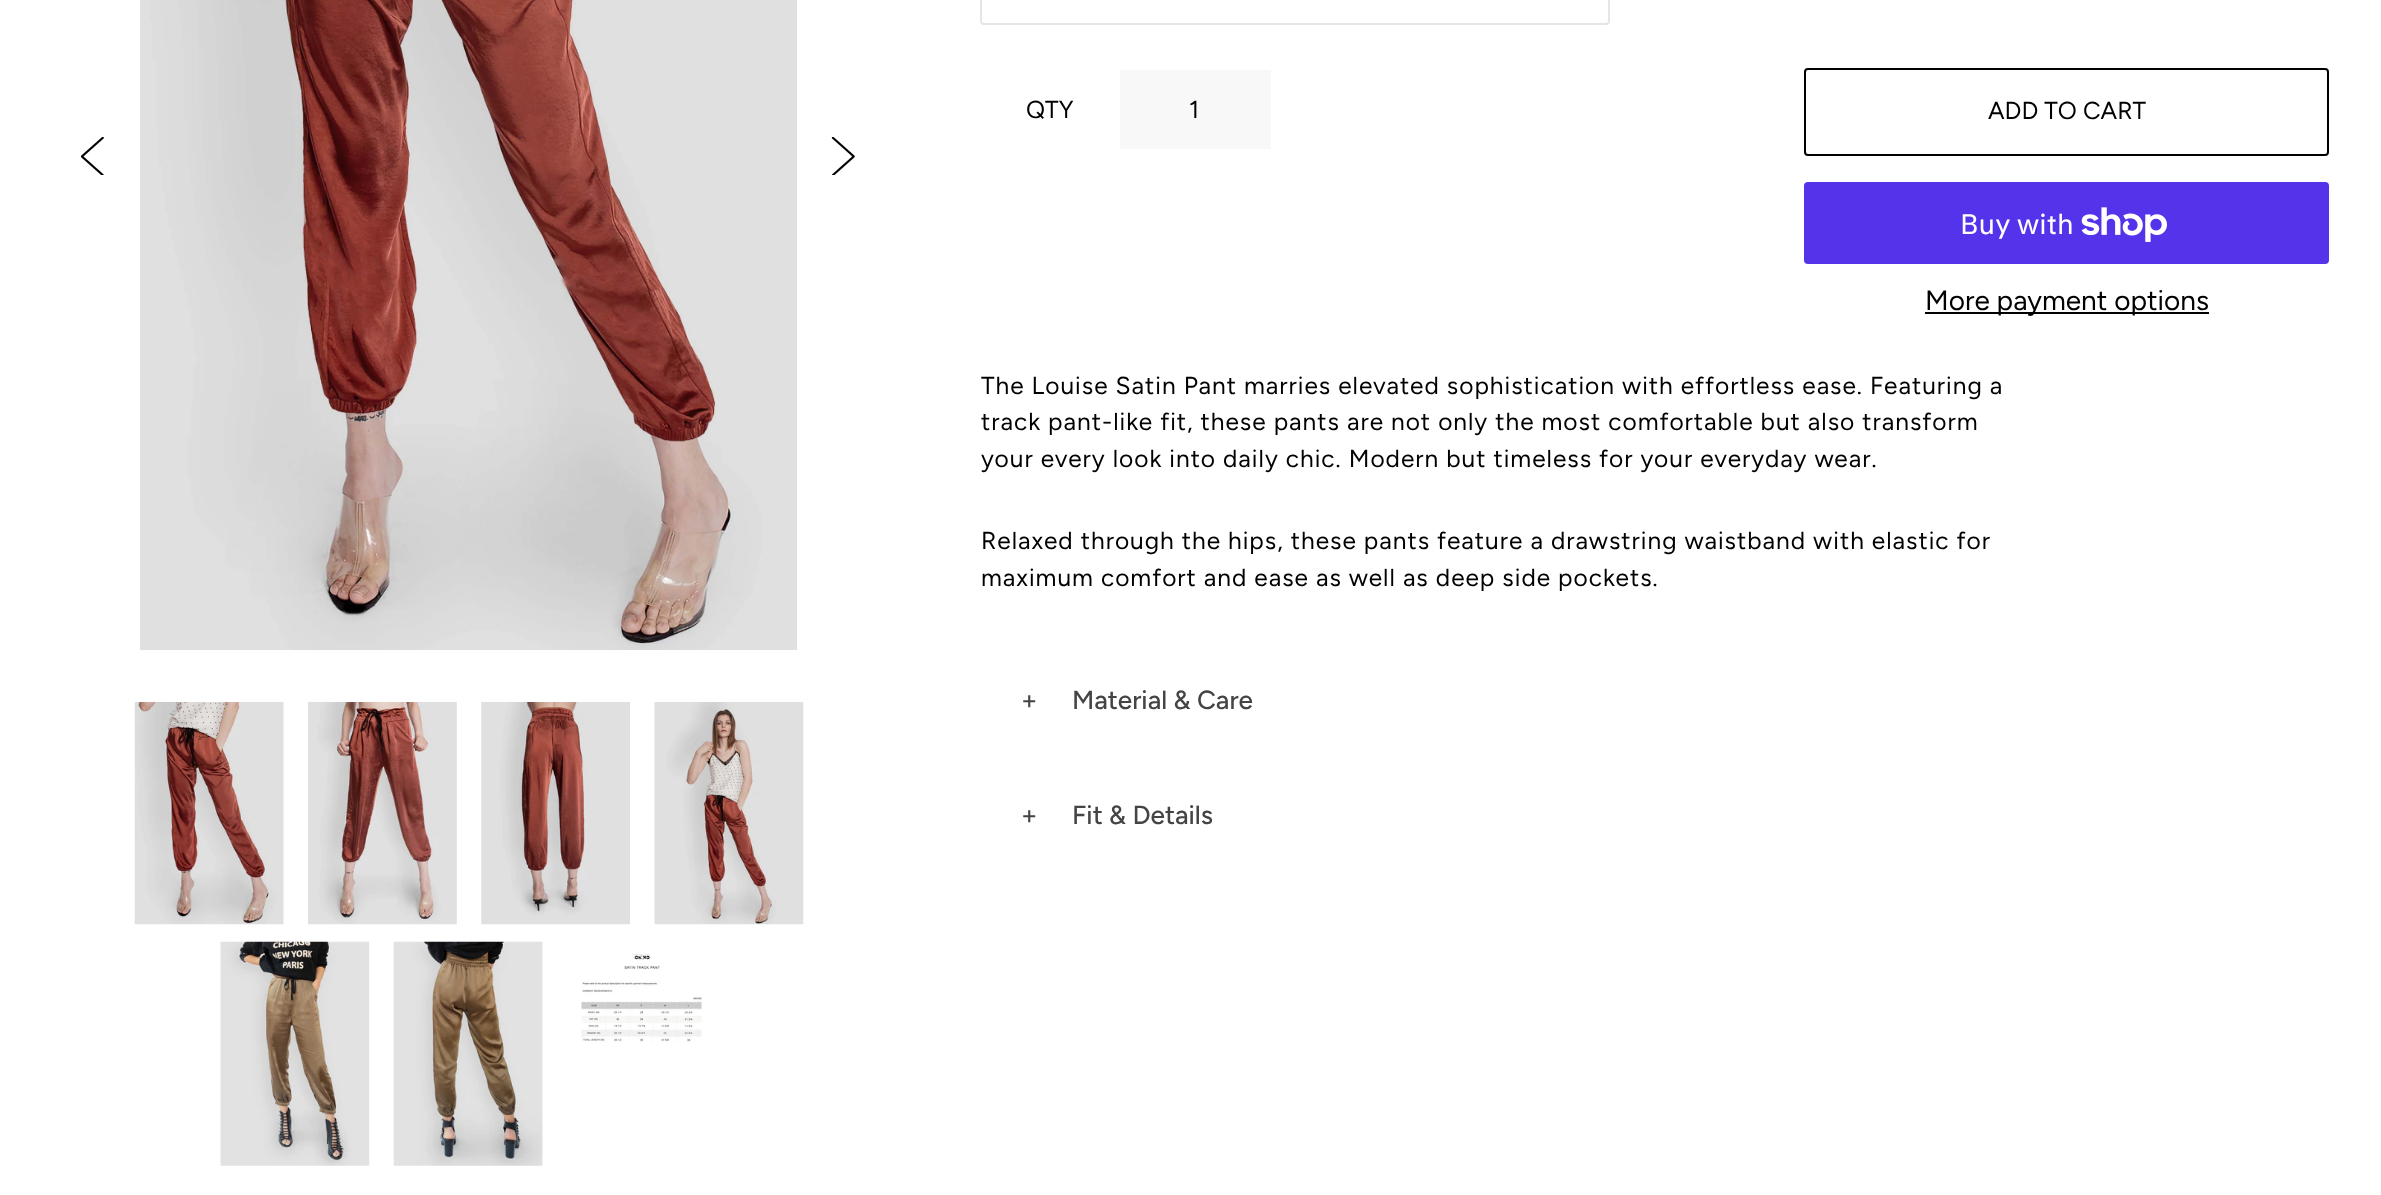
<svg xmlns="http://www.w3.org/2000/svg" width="2381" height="1195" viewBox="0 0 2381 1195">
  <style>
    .t1 { font: 24.5px Figtree; fill: #000; }
    .t2 { font: 28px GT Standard; fill: #fff; }
    .t3 { font: 28px Figtree; fill: #000; }
    .t4 { font: 24.5px Figtree; letter-spacing: 0.98px; fill: #000; }
    .t5 { font: 500 26.25px Figtree; fill: #444; }
  </style>
  <rect width="100%" height="100%" fill="#fff"/>
  <image x="80" y="137" width="24" height="38" href="images/1.png"/>
  <image x="140" y="0" width="657" height="650" href="images/2.png"/>
  <image x="831" y="137" width="24" height="38" href="images/3.png"/>
  <image x="134" y="702" width="150" height="223" href="images/4.png"/>
  <image x="308" y="702" width="149" height="223" href="images/5.png"/>
  <image x="481" y="702" width="149" height="223" href="images/6.png"/>
  <image x="654" y="702" width="150" height="223" href="images/7.png"/>
  <image x="220" y="941" width="150" height="225" href="images/8.png"/>
  <image x="393" y="941" width="150" height="225" href="images/9.png"/>
  <image x="581" y="954" width="121" height="89" href="images/10.png"/>
  <rect x="981" y="-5" width="628" height="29" rx="3" fill="none" stroke="#e5e5e5" stroke-width="2"/>
  <text x="1026" y="118" class="t1">QTY</text>
  <rect x="1120" y="70" width="151" height="79" fill="#f8f8f8"/>
  <text x="1189" y="118" class="t1">1</text>
  <rect x="1805" y="69" width="523" height="86" rx="3" fill="none" stroke="#000" stroke-width="2"/>
  <text x="1988" y="119" class="t1">ADD TO CART</text>
  <rect x="1804" y="182" width="525" height="82" rx="4" fill="#5433eb"/>
  <text x="1960" y="234" class="t2">Buy with</text>
  <image x="2081" y="207" width="86" height="35" href="images/11.png"/>
  <rect x="1925" y="312" width="284" height="2" fill="#000"/>
  <text x="1925" y="310" class="t3">More payment options</text>
  <text x="981" y="394" class="t4">The Louise Satin Pant marries elevated sophistication with effortless ease. Featuring a</text>
  <text x="981" y="430" class="t4">track pant-like fit, these pants are not only the most comfortable but also transform</text>
  <text x="981" y="467" class="t4">your every look into daily chic. Modern but timeless for your everyday wear.</text>
  <text x="981" y="549" class="t4">Relaxed through the hips, these pants feature a drawstring waistband with elastic for</text>
  <text x="981" y="586" class="t4">maximum comfort and ease as well as deep side pockets.</text>
  <text x="1021" y="709" class="t5">+</text>
  <text x="1072" y="709" class="t5">Material &amp; Care</text>
  <text x="1021" y="824" class="t5">+</text>
  <text x="1072" y="824" class="t5">Fit &amp; Details</text>
</svg>
